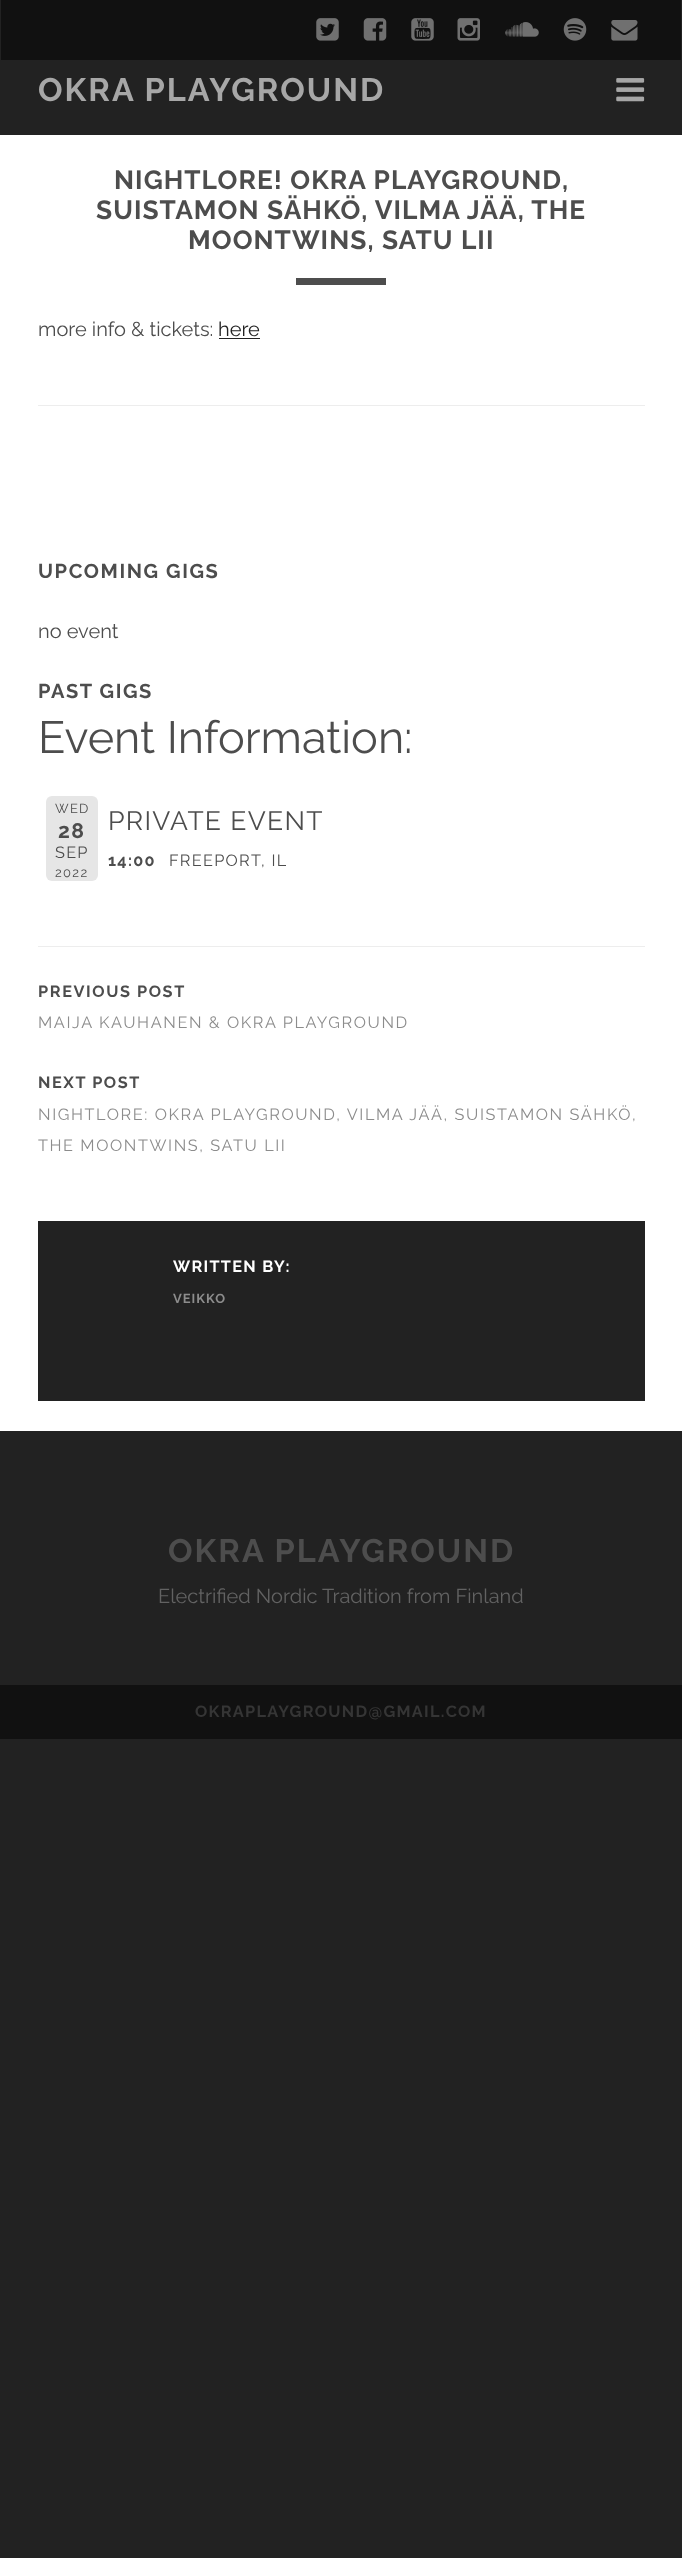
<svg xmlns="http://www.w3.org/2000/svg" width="682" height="2558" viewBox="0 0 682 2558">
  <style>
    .t1 { font: bold 32.5px Raleway; letter-spacing: 2px; fill: #a7a7a7; }
    .t2 { font: bold 26.25px Raleway; letter-spacing: 1.05px; fill: #4d4d4d; }
    .t3 { font: 20px Raleway; fill: #4d4d4d; }
    .t4 { font: 20px Raleway; fill: #222; }
    .t5 { font: bold 20px Raleway; letter-spacing: 1.6px; fill: #4d4d4d; }
    .t6 { font: 45px Raleway; fill: #4d4d4d; }
    .t7 { font: 13px Raleway; letter-spacing: 1.3px; fill: #4d4d4d; }
    .t8 { font: bold 21px Raleway; letter-spacing: 1.3px; fill: #4d4d4d; }
    .t9 { font: 16.25px Raleway; letter-spacing: 1.3px; fill: #4d4d4d; }
    .t10 { font: 26.5px Raleway; letter-spacing: 1.3px; fill: #4d4d4d; }
    .t11 { font: bold 16.25px Raleway; letter-spacing: 1.3px; fill: #4d4d4d; }
    .t12 { font: bold 16.25px Raleway; letter-spacing: 1.6px; fill: #4d4d4d; }
    .t13 { font: 16.25px Raleway; letter-spacing: 1.6px; fill: #8c8c8c; }
    .t14 { font: bold 16.25px Raleway; letter-spacing: 1.3px; fill: #fff; }
    .t15 { font: bold 13px Raleway; letter-spacing: 1px; fill: #8c8c8c; }
    .t16 { font: bold 32.5px Raleway; letter-spacing: 2px; fill: #4d4d4d; }
    .t17 { font: 20px Raleway; fill: #626262; }
    .t18 { font: bold 16.25px Raleway; letter-spacing: 1.3px; fill: #353535; }
  </style>
  <rect width="100%" height="100%" fill="#222"/>
  <rect x="1" y="0" width="680" height="60" fill="#111"/>
  <image x="316" y="18" width="23" height="23" href="images/1.png"/>
  <image x="363" y="18" width="24" height="23" href="images/2.png"/>
  <image x="411" y="18" width="23" height="23" href="images/3.png"/>
  <image x="457" y="18" width="23" height="23" href="images/4.png"/>
  <image x="505" y="22" width="34" height="15" href="images/5.png"/>
  <image x="563" y="18" width="24" height="23" href="images/6.png"/>
  <image x="611" y="20" width="27" height="21" href="images/7.png"/>
  <text x="38" y="101" class="t1">OKRA PLAYGROUND</text>
  <image x="616" y="78" width="29" height="24" href="images/8.png"/>
  <rect x="0" y="135" width="682" height="1296" fill="#fff"/>
  <text x="114" y="189" class="t2">NIGHTLORE! OKRA PLAYGROUND,</text>
  <text x="96" y="219" class="t2">SUISTAMON SÄHKÖ, VILMA JÄÄ, THE</text>
  <text x="188" y="249" class="t2">MOONTWINS, SATU LII</text>
  <rect x="296" y="278" width="90" height="7" fill="#4d4d4d"/>
  <text x="38" y="336" class="t3">more info &amp; tickets:</text>
  <text x="218" y="336" class="t4">here</text>
  <rect x="219" y="338" width="41" height="1" fill="#222"/>
  <rect x="38" y="405" width="607" height="1" fill="#ededed"/>
  <rect x="38" y="946" width="607" height="1" fill="#ededed"/>
  <text x="38" y="578" class="t5">UPCOMING GIGS</text>
  <text x="38" y="638" class="t3">no event</text>
  <text x="38" y="698" class="t5">PAST GIGS</text>
  <text x="38" y="753" class="t6">Event Information:</text>
  <rect x="46" y="796" width="52" height="85" rx="6" fill="#e6e6e6"/>
  <text x="55" y="813" class="t7">WED</text>
  <text x="58" y="838" class="t8">28</text>
  <text x="55" y="858" class="t9">SEP</text>
  <text x="55" y="877" class="t7">2022</text>
  <text x="108" y="830" class="t10">PRIVATE EVENT</text>
  <text x="108" y="866" class="t11">14:00</text>
  <text x="169" y="866" class="t9">FREEPORT, IL</text>
  <text x="38" y="997" class="t12">PREVIOUS POST</text>
  <text x="38" y="1028" class="t13">MAIJA KAUHANEN &amp; OKRA PLAYGROUND</text>
  <text x="38" y="1088" class="t12">NEXT POST</text>
  <text x="38" y="1120" class="t13">NIGHTLORE: OKRA PLAYGROUND, VILMA JÄÄ, SUISTAMON SÄHKÖ,</text>
  <text x="38" y="1151" class="t13">THE MOONTWINS, SATU LII</text>
  <rect x="38" y="1221" width="607" height="180" fill="#222"/>
  <text x="173" y="1272" class="t14">WRITTEN BY:</text>
  <text x="173" y="1303" class="t15">VEIKKO</text>
  <text x="168" y="1562" class="t16">OKRA PLAYGROUND</text>
  <text x="158" y="1603" class="t17">Electrified Nordic Tradition from Finland</text>
  <rect x="0" y="1685" width="682" height="54" fill="#111"/>
  <text x="195" y="1717" class="t18">OKRAPLAYGROUND@GMAIL.COM</text>
</svg>
